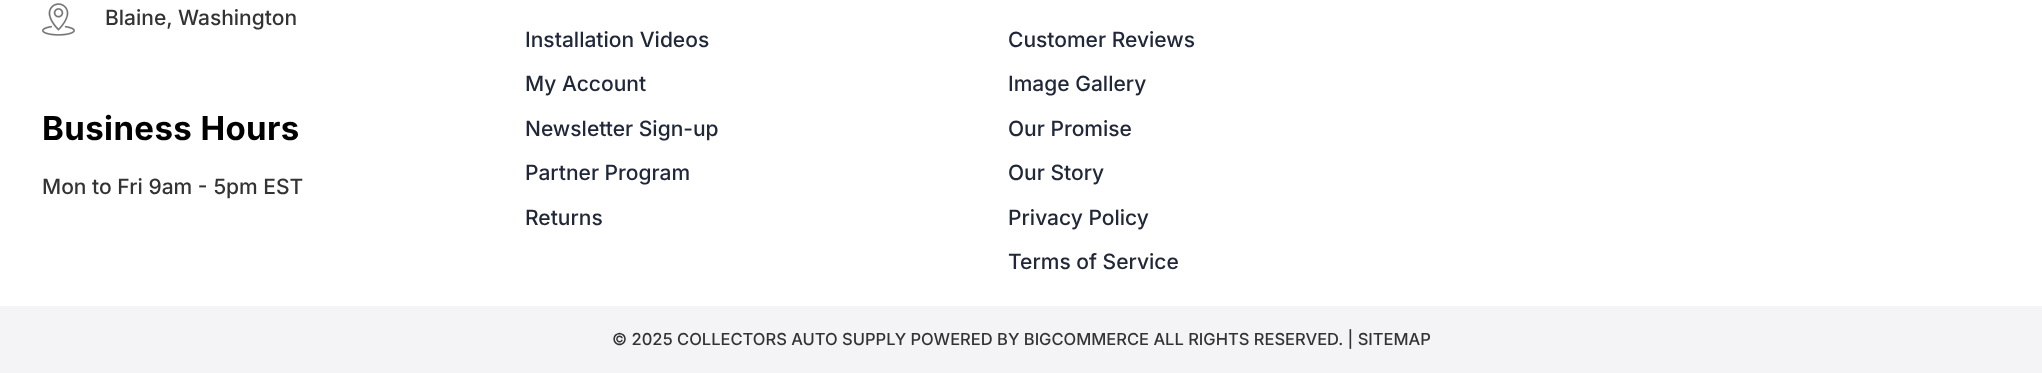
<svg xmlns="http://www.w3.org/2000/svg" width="2042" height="373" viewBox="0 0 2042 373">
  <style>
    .t1 { font: 500 21px Inter; fill: #333; }
    .t2 { font: bold 33px Inter; letter-spacing: 0.4px; fill: #010101; }
    .t3 { font: 500 21px Inter; fill: #202738; }
    .t4 { font: 500 16.5px Inter; fill: #333; }
  </style>
  <rect width="100%" height="100%" fill="#fff"/>
  <image x="42" y="3" width="33" height="33" href="images/1.png"/>
  <text x="105" y="25" class="t1">Blaine, Washington</text>
  <text x="42" y="140" class="t2">Business Hours</text>
  <text x="42" y="194" class="t1">Mon to Fri 9am - 5pm EST</text>
  <text x="525" y="47" class="t3">Installation Videos</text>
  <text x="525" y="91" class="t3">My Account</text>
  <text x="525" y="136" class="t3">Newsletter Sign-up</text>
  <text x="525" y="180" class="t3">Partner Program</text>
  <text x="525" y="225" class="t3">Returns</text>
  <text x="1008" y="47" class="t3">Customer Reviews</text>
  <text x="1008" y="91" class="t3">Image Gallery</text>
  <text x="1008" y="136" class="t3">Our Promise</text>
  <text x="1008" y="180" class="t3">Our Story</text>
  <text x="1008" y="225" class="t3">Privacy Policy</text>
  <text x="1008" y="269" class="t3">Terms of Service</text>
  <rect x="0" y="306" width="2042" height="67" fill="#f4f4f7"/>
  <text x="612" y="345" class="t4">© 2025 COLLECTORS AUTO SUPPLY POWERED BY BIGCOMMERCE ALL RIGHTS RESERVED. | SITEMAP</text>
</svg>
